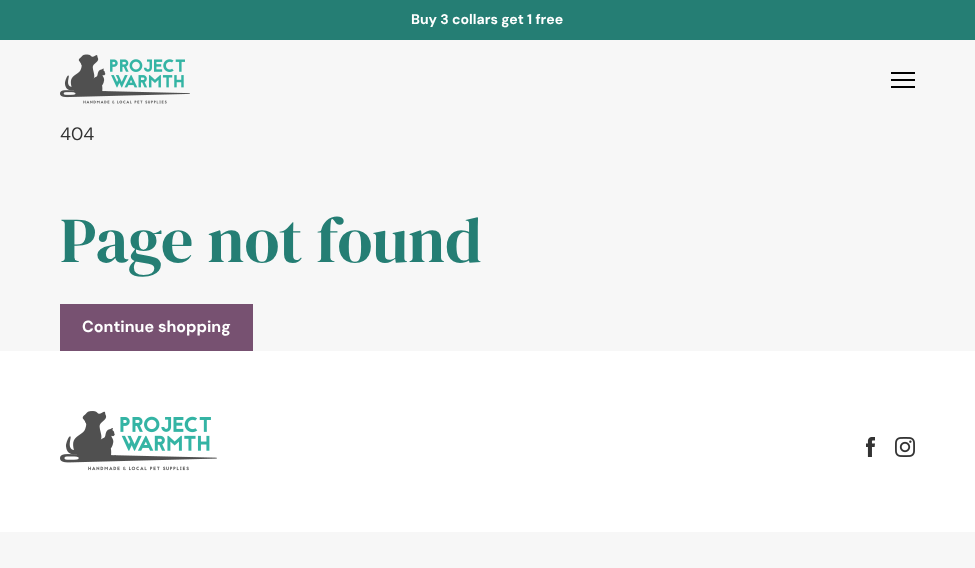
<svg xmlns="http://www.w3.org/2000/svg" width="975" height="568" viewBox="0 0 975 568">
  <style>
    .t1 { font: bold 14px DM Sans; fill: #fff; }
    .t2 { font: 18px DM Sans; fill: #333; }
    .t3 { font: 64px DM Serif Display; fill: #257e74; }
    .t4 { font: bold 16px DM Sans; fill: #fff; }
  </style>
  <rect width="100%" height="100%" fill="#f7f7f7"/>
  <rect x="0" y="0" width="975" height="40" fill="#257e74"/>
  <text x="411" y="24" class="t1">Buy 3 collars get 1 free</text>
  <image x="60" y="54" width="130" height="50" href="images/1.png"/>
  <rect x="891" y="79" width="24" height="2" fill="#000"/>
  <rect x="891" y="72" width="24" height="2" fill="#000"/>
  <rect x="891" y="86" width="24" height="2" fill="#000"/>
  <text x="60" y="140" class="t2">404</text>
  <text x="60" y="262" class="t3">Page not found</text>
  <rect x="60" y="304" width="193" height="47" fill="#775171"/>
  <text x="82" y="332" class="t4">Continue shopping</text>
  <rect x="0" y="351" width="975" height="181" fill="#fff"/>
  <image x="60" y="411" width="157" height="60" href="images/2.png"/>
  <image x="866" y="437" width="9" height="20" href="images/3.png"/>
  <image x="895" y="437" width="20" height="20" href="images/4.png"/>
</svg>
